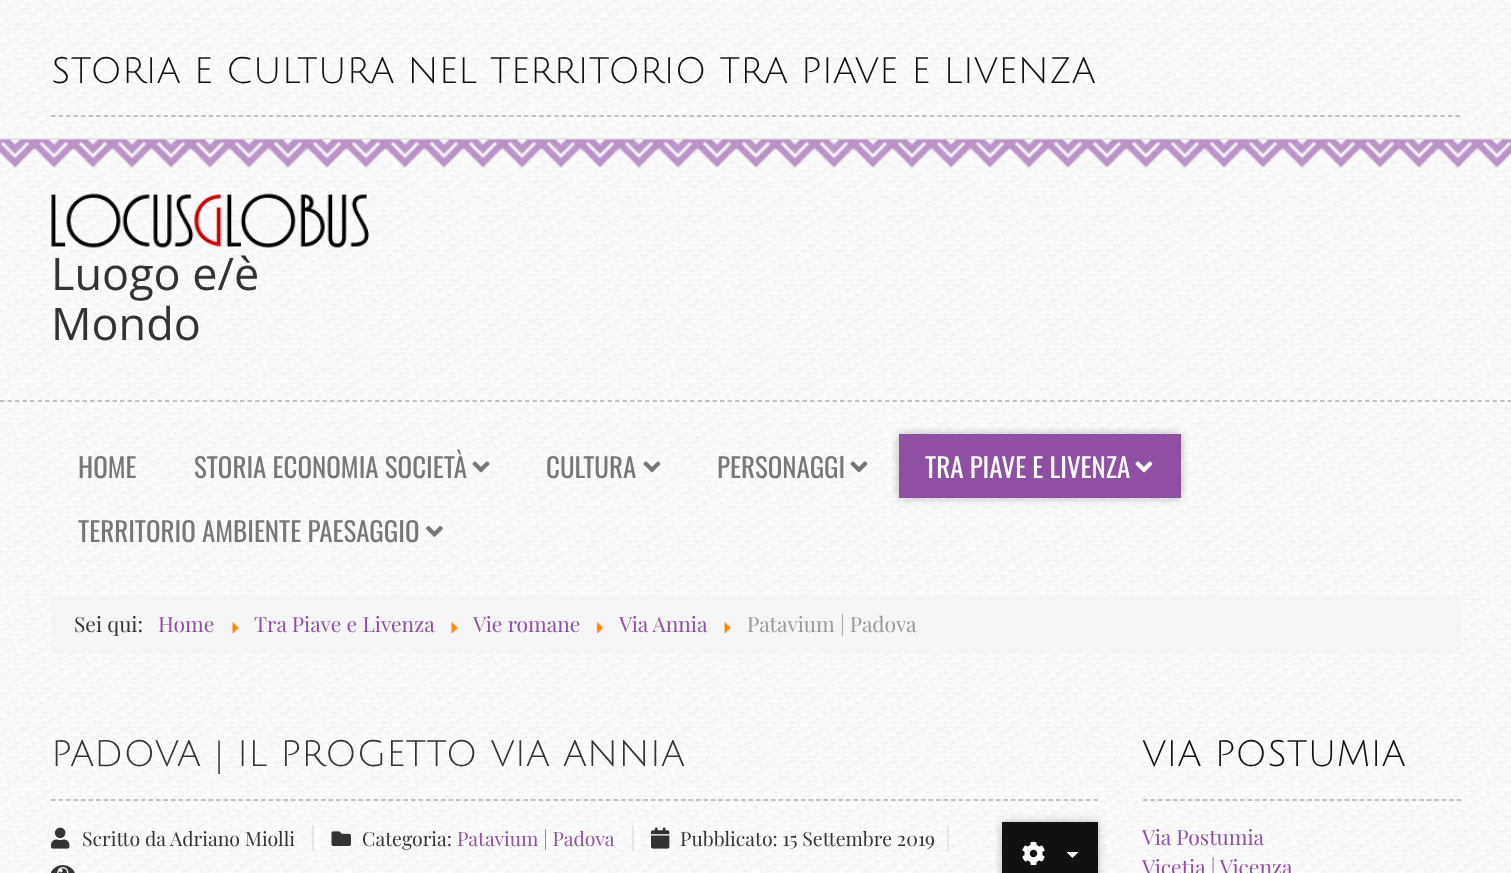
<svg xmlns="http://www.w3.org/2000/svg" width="1511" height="873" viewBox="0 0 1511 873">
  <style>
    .t1 { font: 36px Julius Sans One; fill: #111; }
    .t2 { font: 45px Open Sans; fill: #333; }
    .t3 { font: 27px Oswald; fill: #777; }
    .t4 { font: 27px Oswald; fill: #fff; }
    .t5 { font: 21px Playfair Display; fill: #333; }
    .t6 { font: 21px Playfair Display; fill: #8f50a3; }
    .t7 { font: 21px Playfair Display; fill: #999; }
    .t8 { font: 36px Julius Sans One; fill: #333; }
    .t9 { font: 19.5px Playfair Display; fill: #333; }
    .t10 { font: 19.5px Playfair Display; fill: #8f50a3; }
  </style>
  <rect width="100%" height="100%" fill="#fff"/>
  <image x="0" y="140" width="1511" height="456" href="images/1.png"/>
  <image x="0" y="0" width="1511" height="138" href="images/2.png"/>
  <rect x="0" y="138" width="1511" height="2" fill="#e7e7e7"/>
  <path d="M51 116H1461" fill="none" stroke="#b1b1b1" stroke-width="1.5" stroke-dasharray="4.5 3.01"/>
  <text x="51" y="83" class="t1">STORIA E CULTURA NEL TERRITORIO TRA PIAVE E LIVENZA</text>
  <image x="0" y="139" width="1511" height="29" href="images/3.png"/>
  <image x="51" y="193" width="318" height="55" href="images/4.png"/>
  <text x="51" y="290" class="t2">Luogo e/è</text>
  <text x="51" y="340" class="t2">Mondo</text>
  <path d="M0 401H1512" fill="none" stroke="#b1b1b1" stroke-width="1.5" stroke-dasharray="4.5 3"/>
  <text x="78" y="478" class="t3">HOME</text>
  <text x="194" y="478" class="t3">STORIA ECONOMIA SOCIETÀ</text>
  <image x="472" y="461" width="18" height="12" href="images/5.png"/>
  <text x="546" y="478" class="t3">CULTURA</text>
  <image x="643" y="461" width="18" height="12" href="images/6.png"/>
  <text x="717" y="478" class="t3">PERSONAGGI</text>
  <image x="850" y="461" width="18" height="12" href="images/7.png"/>
  <rect x="899" y="434" width="282" height="64" fill="#00000045" filter="blur(5px)"/>
  <rect x="899" y="434" width="282" height="64" fill="#8f50a3"/>
  <text x="925" y="478" class="t4">TRA PIAVE E LIVENZA</text>
  <image x="1135" y="461" width="18" height="12" href="images/8.png"/>
  <text x="78" y="542" class="t3">TERRITORIO AMBIENTE PAESAGGIO</text>
  <image x="426" y="526" width="17" height="11" href="images/9.png"/>
  <image x="0" y="596" width="1511" height="88" href="images/10.png"/>
  <rect x="51" y="596" width="1410" height="58" rx="6" fill="#f5f5f5"/>
  <text x="74" y="632" class="t5">Sei qui:</text>
  <text x="158" y="632" class="t6">Home</text>
  <image x="232" y="622" width="7" height="11" href="images/11.png"/>
  <text x="254" y="632" class="t6">Tra Piave e Livenza</text>
  <image x="451" y="622" width="7" height="11" href="images/12.png"/>
  <text x="473" y="632" class="t6">Vie romane</text>
  <image x="596" y="622" width="8" height="11" href="images/13.png"/>
  <text x="619" y="632" class="t6">Via Annia</text>
  <image x="724" y="622" width="7" height="11" href="images/12.png"/>
  <text x="747" y="632" class="t7">Patavium | Padova</text>
  <image x="0" y="684" width="1511" height="189" href="images/14.png"/>
  <path d="M51 800H1098" fill="none" stroke="#b1b1b1" stroke-width="1.5" stroke-dasharray="4.5 3"/>
  <text x="51" y="766" class="t8">PADOVA | IL PROGETTO VIA ANNIA</text>
  <rect x="312" y="825" width="2" height="26" fill="#e7e7e7"/>
  <image x="51" y="827" width="19" height="22" href="images/15.png"/>
  <text x="82" y="846" class="t9">Scritto da</text>
  <text x="170" y="846" class="t9">Adriano Miolli</text>
  <rect x="632" y="825" width="2" height="26" fill="#e7e7e7"/>
  <image x="331" y="831" width="20" height="15" href="images/16.png"/>
  <text x="362" y="846" class="t9">Categoria:</text>
  <text x="457" y="846" class="t10">Patavium | Padova</text>
  <rect x="947" y="825" width="2" height="26" fill="#e7e7e7"/>
  <image x="651" y="827" width="19" height="22" href="images/17.png"/>
  <text x="680" y="846" class="t9">Pubblicato: 15 Settembre 2019</text>
  <image x="51" y="865" width="24" height="8" href="images/18.png"/>
  <rect x="1002" y="822" width="96" height="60" fill="#00000045" filter="blur(5px)"/>
  <rect x="1002" y="822" width="96" height="51" fill="#111"/>
  <image x="1022" y="841" width="23" height="25" href="images/19.png"/>
  <path d="M1066.5 852H1078.5L1072.5 858Z" fill="#fff"/>
  <path d="M1143 800H1461" fill="none" stroke="#b1b1b1" stroke-width="1.5" stroke-dasharray="4.5 2.97"/>
  <text x="1142" y="766" class="t1">VIA POSTUMIA</text>
  <text x="1142" y="845" class="t6">Via Postumia</text>
  <text x="1142" y="875" class="t6">Vicetia | Vicenza</text>
</svg>
